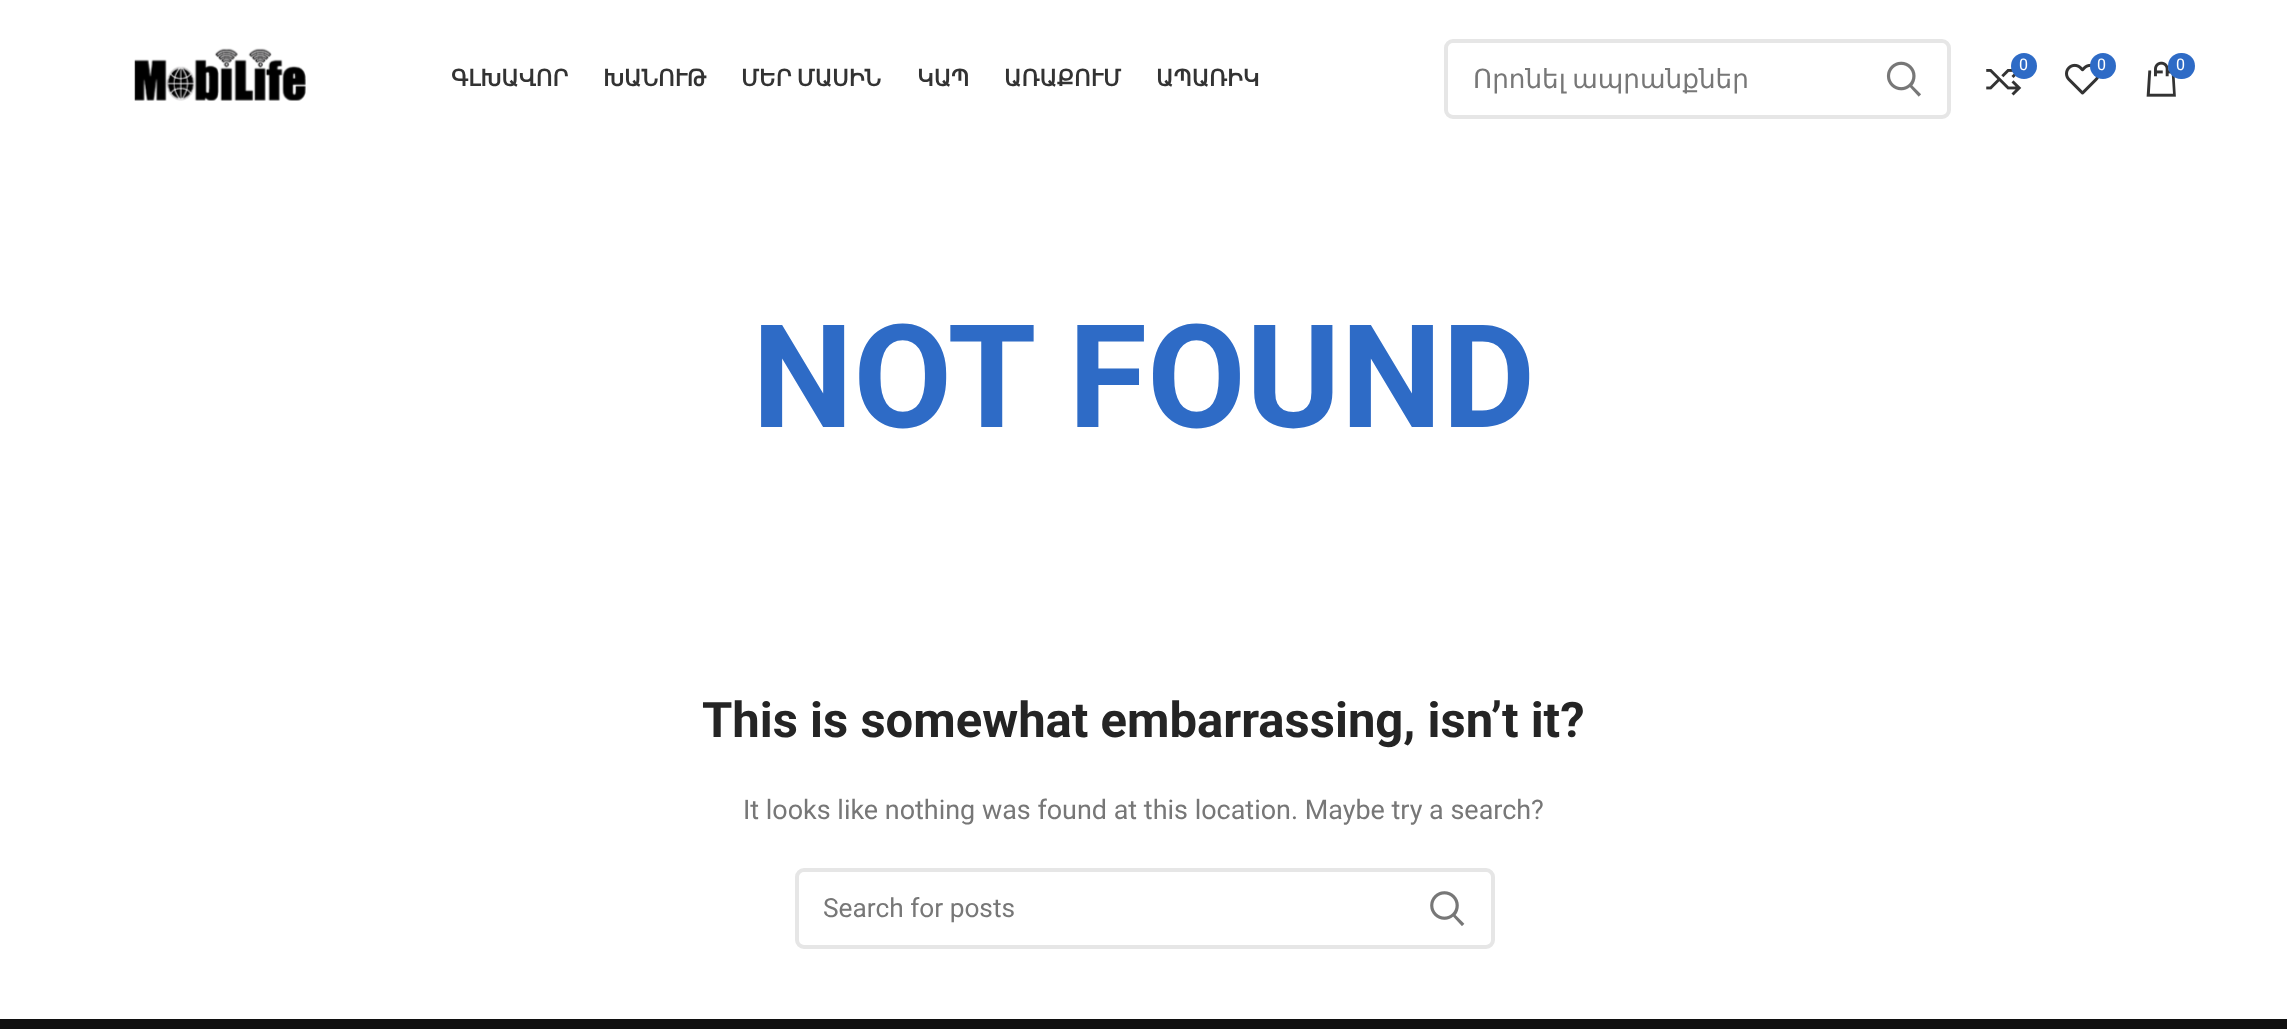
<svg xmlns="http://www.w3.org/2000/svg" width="2287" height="1029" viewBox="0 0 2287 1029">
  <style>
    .t1 { font: bold 22.75px DejaVu Sans; fill: #333; }
    .t2 { font: 16px Roboto; fill: #fff; }
    .t3 { font: 26.25px DejaVu Sans; fill: #777; }
    .t4 { font: bold 143.5px Roboto; fill: #2e6bc6; }
    .t5 { font: bold 49px Roboto; fill: #242424; }
    .t6 { font: 26.95px Roboto; fill: #777; }
    .t7 { font: 26.25px Roboto; fill: #777; }
  </style>
  <rect width="100%" height="100%" fill="#fff"/>
  <image x="134" y="48" width="172" height="53" href="images/1.png"/>
  <text x="451" y="86" class="t1">ԳԼԽԱՎՈՐ</text>
  <text x="603" y="86" class="t1">ԽԱՆՈՒԹ</text>
  <text x="741" y="86" word-spacing="-2" class="t1">ՄԵՐ ՄԱՍԻՆ</text>
  <text x="917" y="86" class="t1">ԿԱՊ</text>
  <text x="1004" y="86" class="t1">ԱՌԱՔՈՒՄ</text>
  <text x="1156" y="86" class="t1">ԱՊԱՌԻԿ</text>
  <image x="1986" y="64" width="36" height="32" href="images/2.png"/>
  <circle cx="2024" cy="66" r="13" fill="#2e6bc6"/>
  <text x="2019" y="70" class="t2">0</text>
  <image x="2065" y="63" width="34" height="32" href="images/3.png"/>
  <circle cx="2103" cy="66" r="13" fill="#2e6bc6"/>
  <text x="2097" y="70" class="t2">0</text>
  <image x="2146" y="61" width="30" height="36" href="images/4.png"/>
  <rect x="2168" y="53" width="27" height="26" rx="13" fill="#2e6bc6"/>
  <text x="2176" y="70" class="t2">0</text>
  <rect x="1446" y="41" width="503" height="76" rx="7" fill="none" stroke="#e6e6e6" stroke-width="4"/>
  <text x="1473" y="88" word-spacing="-2" class="t3">Որոնել ապրանքներ</text>
  <image x="1886" y="61" width="35" height="36" href="images/5.png"/>
  <text x="752" y="427" class="t4">NOT FOUND</text>
  <text x="702" y="737" class="t5">This is somewhat embarrassing, isn’t it?</text>
  <text x="743" y="819" class="t6">It looks like nothing was found at this location. Maybe try a search?</text>
  <rect x="797" y="870" width="696" height="77" rx="7" fill="none" stroke="#e6e6e6" stroke-width="4"/>
  <text x="823" y="917" class="t7">Search for posts</text>
  <image x="1430" y="891" width="35" height="35" href="images/6.png"/>
  <rect x="0" y="1019" width="2287" height="10" fill="#101010"/>
</svg>
